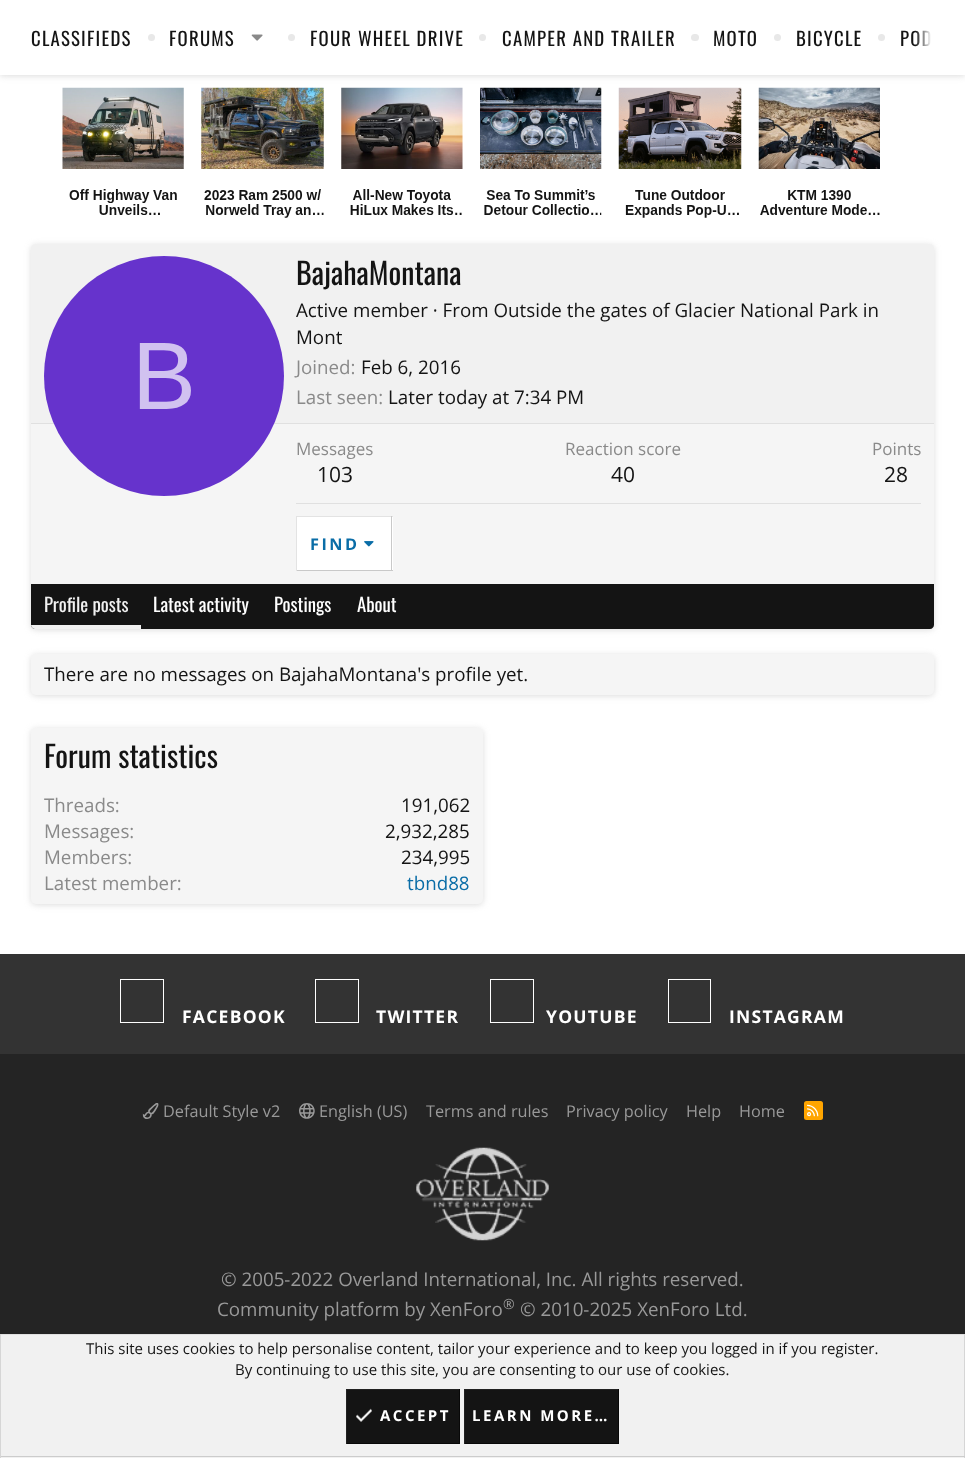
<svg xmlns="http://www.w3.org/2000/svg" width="965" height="1483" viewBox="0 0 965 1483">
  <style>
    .t1 { font: 18.75px Oswald; letter-spacing: 1.25px; fill: #141414; }
    .t2 { font: 96px Liberation Sans; fill: #d1c2f0; }
    .t3 { font: 30px Oswald; fill: #141414; }
    .t4 { font: 18.75px Open Sans; fill: #141414; }
    .t5 { font: 18.75px Open Sans; fill: #8a8a8a; }
    .t6 { font: 17px Open Sans; fill: #8a8a8a; }
    .t7 { font: 21px Open Sans; fill: #141414; }
    .t8 { font: bold 16.25px Open Sans; letter-spacing: 2.5px; fill: #0a6da7; }
    .t9 { font: 18.75px Oswald; fill: #f1f1f1; }
    .t10 { font: 18.75px Oswald; fill: #fff; }
    .t11 { font: 18.75px Open Sans; fill: #0a6da7; }
    .t12 { font: bold 17.5px Open Sans; letter-spacing: 1.25px; fill: #fff; }
    .t13 { font: 16.25px Open Sans; fill: #999; }
    .t14 { font: 18.75px Open Sans; fill: #999; }
    .t15 { font: 14px Open Sans; fill: #999; }
    .t16 { font: 15px Open Sans; fill: #141414; }
    .t17 { font: bold 15px Open Sans; letter-spacing: 2.5px; fill: #fff; }
  </style>
  <defs>
    <linearGradient id="g1" gradientUnits="userSpaceOnUse" x1="915" y1="38" x2="965" y2="38"><stop offset="0" stop-color="#fff" stop-opacity="0"/><stop offset="0.33" stop-color="#fff"/></linearGradient>
  </defs>
  <rect width="100%" height="100%" fill="#fff"/>
  <rect x="0" y="1" width="965" height="75" fill="#b9b9b980" filter="blur(3px)"/>
  <rect x="0" y="0" width="931" height="75" fill="#fff"/>
  <text x="31" y="46" class="t1">CLASSIFIEDS</text>
  <circle cx="151.5" cy="37.5" r="3.5" fill="#e8e8e8"/>
  <text x="169" y="46" class="t1">FORUMS</text>
  <image x="251" y="34" width="12" height="7" href="images/1.png"/>
  <circle cx="291.5" cy="37.5" r="3.5" fill="#e8e8e8"/>
  <text x="310" y="46" class="t1">FOUR WHEEL DRIVE</text>
  <circle cx="482.5" cy="37.5" r="3.5" fill="#e8e8e8"/>
  <text x="502" y="46" class="t1">CAMPER AND TRAILER</text>
  <rect x="691" y="34" width="8" height="7" rx="3.5" fill="#e8e8e8"/>
  <text x="713" y="46" class="t1">MOTO</text>
  <circle cx="777.5" cy="37.5" r="3.5" fill="#e8e8e8"/>
  <text x="796" y="46" class="t1">BICYCLE</text>
  <circle cx="881.5" cy="37.5" r="3.5" fill="#e8e8e8"/>
  <text x="900" y="46" class="t1">POD</text>
  <rect x="915" y="0" width="50" height="75" fill="url(#g1)"/>
  <image x="62" y="87" width="818" height="131" href="images/2.png"/>
  <rect x="31" y="245" width="903" height="385" rx="5" fill="#b9b9b980" filter="blur(3px)"/>
  <rect x="31" y="244" width="903" height="385" rx="5" fill="#f5f5f5"/>
  <path d="M35 244H930C932 244 934 246 934 248V424H31V248C31 246 33 244 35 244Z" fill="#f1f1f1"/>
  <rect x="31" y="423" width="903" height="1" fill="#e0e0e0"/>
  <circle cx="164" cy="376" r="120" fill="#63c"/>
  <text x="132" y="409" class="t2">B</text>
  <text x="296" y="285" class="t3">BajahaMontana</text>
  <text x="296" y="317" class="t4">Active member · From Outside the gates of Glacier National Park in</text>
  <text x="296" y="344" class="t4">Mont</text>
  <text x="296" y="374" class="t5">Joined:</text>
  <text x="361" y="374" class="t4">Feb 6, 2016</text>
  <text x="296" y="404" class="t5">Last seen:</text>
  <text x="388" y="404" class="t4">Later today at 7:34 PM</text>
  <text x="296" y="455" class="t6">Messages</text>
  <text x="317" y="482" class="t7">103</text>
  <text x="565" y="455" class="t6">Reaction score</text>
  <text x="611" y="482" class="t7">40</text>
  <text x="872" y="455" class="t6">Points</text>
  <text x="884" y="482" class="t7">28</text>
  <rect x="296" y="503" width="625" height="1" fill="#e0e0e0"/>
  <rect x="297" y="517" width="96" height="53" fill="#fff"/>
  <rect x="296" y="516" width="97" height="1" fill="#e3e3e3"/>
  <rect x="391" y="516" width="1" height="55" fill="#c9c9c9"/>
  <rect x="296" y="570" width="97" height="1" fill="#c9c9c9"/>
  <rect x="296" y="516" width="1" height="55" fill="#e3e3e3"/>
  <text x="310" y="550" class="t8">FIND</text>
  <image x="364" y="541" width="10" height="6" href="images/3.png"/>
  <path d="M31 584H934V625C934 627 932 629 930 629H35C33 629 31 627 31 625Z" fill="#141414"/>
  <path d="M31 625H141V629H35C33 629 31 627 31 625Z" fill="#f1f1f1"/>
  <text x="44" y="612" class="t9">Profile posts</text>
  <text x="153" y="612" class="t10">Latest activity</text>
  <text x="274" y="612" class="t10">Postings</text>
  <text x="357" y="612" class="t10">About</text>
  <rect x="31" y="655" width="903" height="41" rx="5" fill="#b9b9b980" filter="blur(3px)"/>
  <rect x="31" y="654" width="903" height="41" rx="5" fill="#f5f5f5"/>
  <text x="44" y="681" class="t4">There are no messages on BajahaMontana's profile yet.</text>
  <rect x="31" y="729" width="452" height="176" rx="5" fill="#b9b9b980" filter="blur(3px)"/>
  <rect x="31" y="728" width="452" height="176" rx="5" fill="#f5f5f5"/>
  <text x="44" y="768" class="t3">Forum statistics</text>
  <text x="44" y="812" class="t5">Threads:</text>
  <text x="401" y="812" class="t4">191,062</text>
  <text x="44" y="838" class="t5">Messages:</text>
  <text x="385" y="838" class="t4">2,932,285</text>
  <text x="44" y="864" class="t5">Members:</text>
  <text x="401" y="864" class="t4">234,995</text>
  <text x="44" y="890" class="t5">Latest member:</text>
  <text x="407" y="890" class="t11">tbnd88</text>
  <rect x="0" y="954" width="965" height="100" fill="#333"/>
  <rect x="120.5" y="979.5" width="43" height="43" fill="none" stroke="#fff"/>
  <text x="182" y="1023" class="t12">FACEBOOK</text>
  <rect x="315.5" y="979.5" width="43" height="43" fill="none" stroke="#fff"/>
  <text x="376" y="1023" class="t12">TWITTER</text>
  <rect x="490.5" y="979.5" width="43" height="43" fill="none" stroke="#fff"/>
  <text x="546" y="1023" class="t12">YOUTUBE</text>
  <rect x="668.5" y="979.5" width="42" height="43" fill="none" stroke="#fff"/>
  <text x="729" y="1023" class="t12">INSTAGRAM</text>
  <rect x="0" y="1054" width="965" height="280" fill="#242424"/>
  <image x="142" y="1103" width="17" height="16" href="images/4.png"/>
  <text x="163" y="1117" class="t13">Default Style v2</text>
  <image x="299" y="1103" width="16" height="16" href="images/5.png"/>
  <text x="319" y="1117" class="t13">English (US)</text>
  <text x="426" y="1117" class="t13">Terms and rules</text>
  <text x="566" y="1117" class="t13">Privacy policy</text>
  <text x="686" y="1117" class="t13">Help</text>
  <text x="739" y="1117" class="t13">Home</text>
  <rect x="804" y="1101" width="19" height="19" rx="2.5" fill="#ffa500"/>
  <image x="807" y="1104" width="12" height="13" href="images/6.png"/>
  <image x="416" y="1147" width="133" height="94" href="images/7.png"/>
  <text x="221" y="1286" class="t14">© 2005-2022 Overland International, Inc. All rights reserved.</text>
  <text x="217" y="1316" class="t14">Community platform by XenForo</text>
  <text x="503" y="1309" class="t15">®</text>
  <text x="520" y="1316" class="t14">© 2010-2025 XenForo Ltd.</text>
  <rect x="1" y="1335" width="963" height="123" fill="#f1f1f1"/>
  <rect x="0" y="1334" width="965" height="1" fill="#e0e0e0"/>
  <rect x="964" y="1334" width="1" height="124" fill="#d6d6d6"/>
  <rect x="0" y="1456" width="965" height="1" fill="#ccc"/>
  <rect x="0" y="1334" width="1" height="124" fill="#d6d6d6"/>
  <text x="86" y="1354" class="t16">This site uses cookies to help personalise content, tailor your experience and to keep you logged in if you register.</text>
  <text x="235" y="1375" class="t16">By continuing to use this site, you are consenting to our use of cookies.</text>
  <rect x="347" y="1390" width="112" height="53" fill="#141414"/>
  <rect x="346" y="1389" width="114" height="1" fill="#212121"/>
  <rect x="459" y="1389" width="1" height="55" fill="#080808"/>
  <rect x="346" y="1443" width="114" height="1" fill="#080808"/>
  <rect x="346" y="1389" width="1" height="55" fill="#212121"/>
  <image x="356" y="1408" width="16" height="14" href="images/8.png"/>
  <text x="380" y="1421" class="t17">ACCEPT</text>
  <rect x="465" y="1390" width="153" height="53" fill="#141414"/>
  <rect x="464" y="1389" width="155" height="1" fill="#212121"/>
  <rect x="618" y="1389" width="1" height="55" fill="#080808"/>
  <rect x="464" y="1443" width="155" height="1" fill="#080808"/>
  <rect x="464" y="1389" width="1" height="55" fill="#212121"/>
  <text x="472" y="1421" class="t17">LEARN MORE…</text>
</svg>
